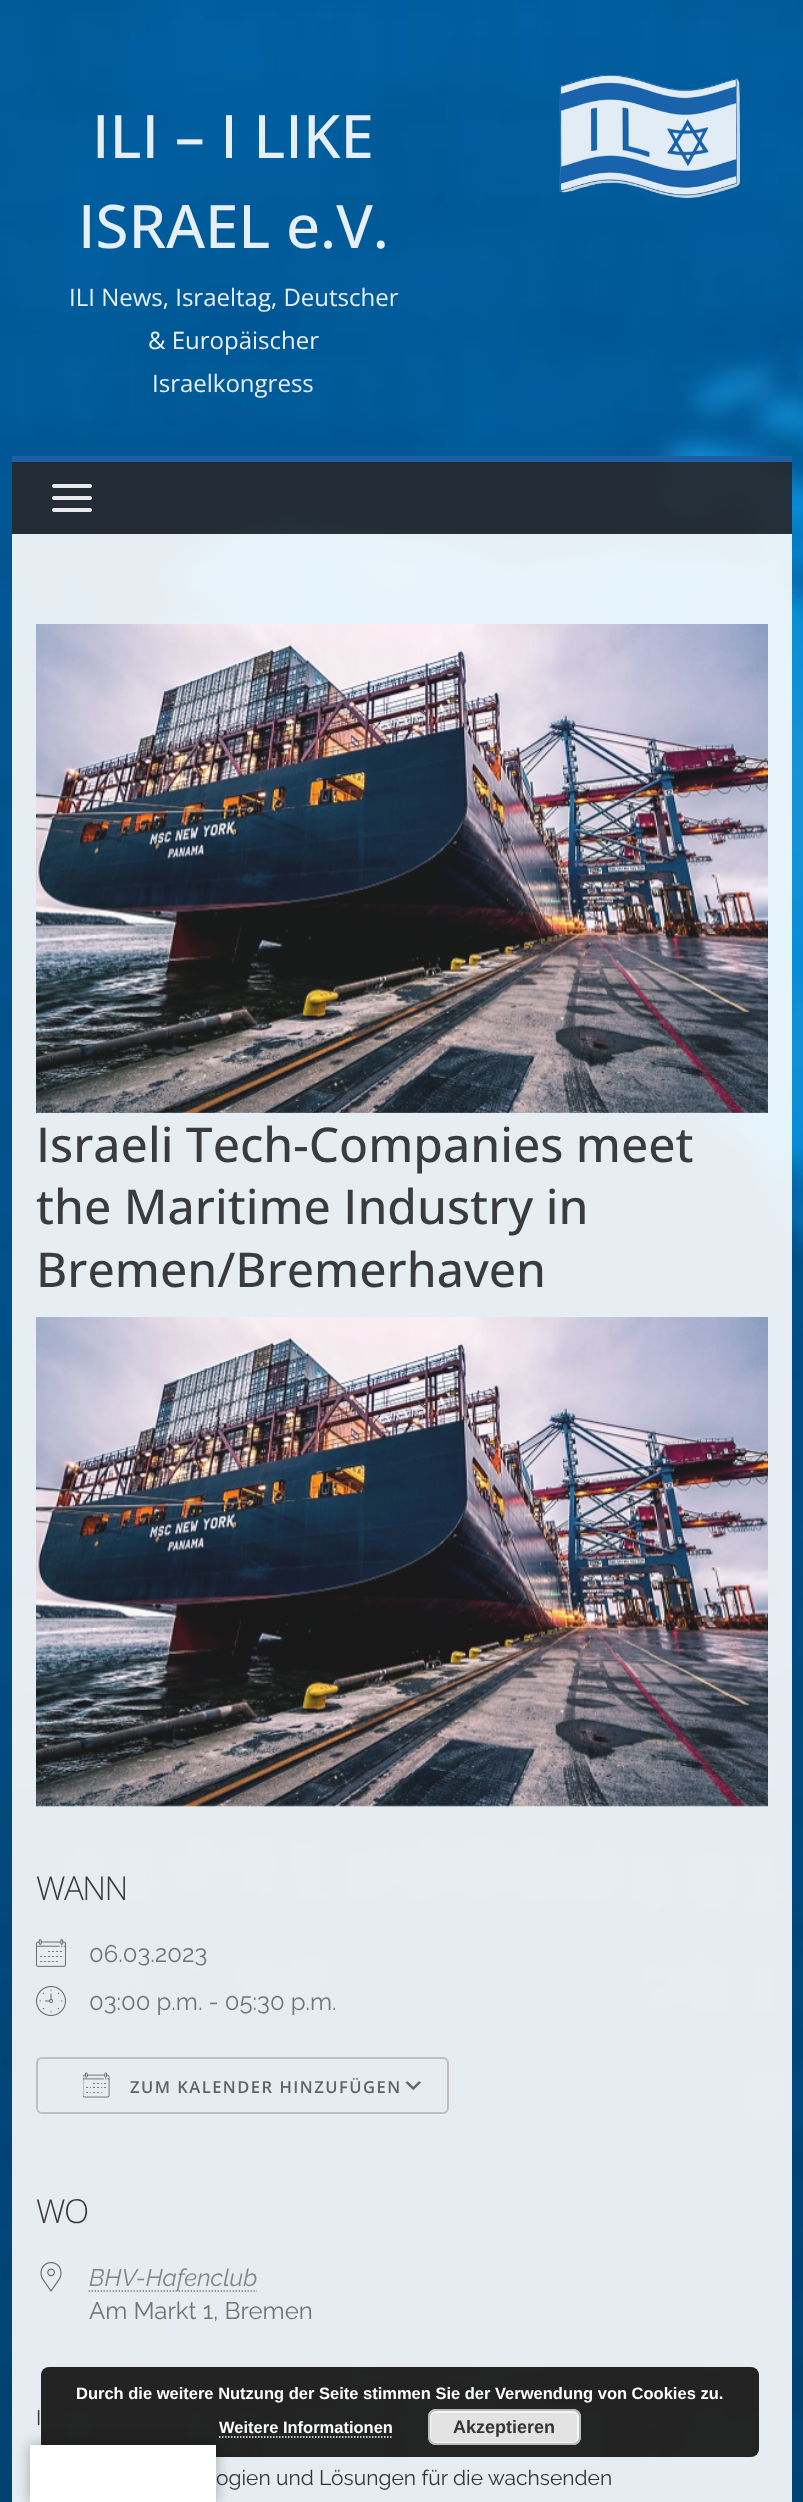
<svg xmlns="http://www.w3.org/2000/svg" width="803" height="2502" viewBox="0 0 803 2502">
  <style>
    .t1 { font: 500 60px Open Sans; fill: #e6eff5; }
    .t2 { font: 24px Open Sans; fill: #e6eff5; }
    .t3 { font: 500 48px Open Sans; fill: #3a3b3e; }
    .t4 { font: 300 33px Open Sans; letter-spacing: -1.5px; fill: #3a3b3e; }
    .t5 { font: 24px Raleway; fill: #737374; }
    .t6 { font: 600 16.5px Open Sans; letter-spacing: 1.5px; fill: #636364; }
    .t7 { font: italic 24px Raleway; fill: #838484; }
    .t8 { font: 21px Raleway; fill: #353536; }
    .t9 { font: bold 16.5px Liberation Sans; fill: #fff; }
    .t10 { font: bold 18px Liberation Sans; fill: #353536; }
  </style>
  <rect width="100%" height="100%" fill="#fff"/>
  <image x="0" y="0" width="803" height="2502" href="images/1.png"/>
  <image x="559" y="75" width="181" height="123" href="images/2.png"/>
  <text x="92" y="158" class="t1">ILI – I LIKE</text>
  <text x="78" y="248" class="t1">ISRAEL e.V.</text>
  <text x="69" y="306" class="t2">ILI News, Israeltag, Deutscher</text>
  <text x="148" y="349" class="t2">&amp; Europäischer</text>
  <text x="152" y="392" class="t2">Israelkongress</text>
  <rect x="12" y="456" width="780" height="78" fill="#27272ae6"/>
  <rect x="12" y="456" width="780" height="6" fill="#1c65aee6"/>
  <image x="52" y="484" width="40" height="28" href="images/3.png"/>
  <rect x="12" y="534" width="780" height="1968" fill="#ffffffe6"/>
  <image x="36" y="624" width="732" height="489" href="images/4.png"/>
  <text x="36" y="1162" class="t3">Israeli Tech-Companies meet</text>
  <text x="36" y="1224" class="t3">the Maritime Industry in</text>
  <text x="36" y="1287" class="t3">Bremen/Bremerhaven</text>
  <image x="36" y="1317" width="732" height="490" href="images/5.png"/>
  <text x="36" y="1900" class="t4">WANN</text>
  <image x="36" y="1939" width="30" height="28" href="images/6.png"/>
  <text x="89" y="1962" class="t5">06.03.2023</text>
  <image x="36" y="1986" width="30" height="30" href="images/7.png"/>
  <text x="89" y="2010" class="t5">03:00 p.m. - 05:30 p.m.</text>
  <image x="405" y="2081" width="16" height="10" href="images/8.png"/>
  <rect x="37" y="2058" width="411" height="55" rx="5" fill="none" stroke="#bebfc0" stroke-width="2"/>
  <image x="83" y="2072" width="27" height="26" href="images/9.png"/>
  <text x="130" y="2093" class="t6">ZUM KALENDER HINZUFÜGEN</text>
  <text x="36" y="2223" class="t4">WO</text>
  <image x="40" y="2262" width="22" height="30" href="images/10.png"/>
  <path d="M88.5 2291H257" fill="none" stroke="#838484" stroke-width="1.5" stroke-dasharray="1.5 1.5"/>
  <text x="89" y="2286" class="t7">BHV-Hafenclub</text>
  <text x="89" y="2319" class="t5">Am Markt 1, Bremen</text>
  <text x="36" y="2425" class="t8">I</text>
  <text x="216" y="2485" class="t8">ogien und Lösungen für die wachsenden</text>
  <rect x="41" y="2367" width="718" height="90" rx="8" fill="#000000d9"/>
  <text x="76" y="2399" class="t9">Durch die weitere Nutzung der Seite stimmen Sie der Verwendung von Cookies zu.</text>
  <text x="219" y="2433" class="t9">Weitere Informationen</text>
  <path d="M219 2437H393" fill="none" stroke="#fff" stroke-width="1.5" stroke-dasharray="1.5 1.5"/>
  <rect x="428" y="2409" width="153" height="36" rx="8" fill="#e3e3e3"/>
  <rect x="430" y="2412" width="148" height="31" rx="5" fill="none" stroke="#f6f6f6" stroke-width="2"/>
  <rect x="429" y="2410" width="151" height="34" rx="7" fill="none" stroke="#bbb" stroke-width="2"/>
  <text x="453" y="2433" class="t10">Akzeptieren</text>
  <rect x="30" y="2445" width="186" height="57" fill="#0000004d" filter="blur(7px)"/>
  <rect x="30" y="2445" width="186" height="57" fill="#fff"/>
</svg>
